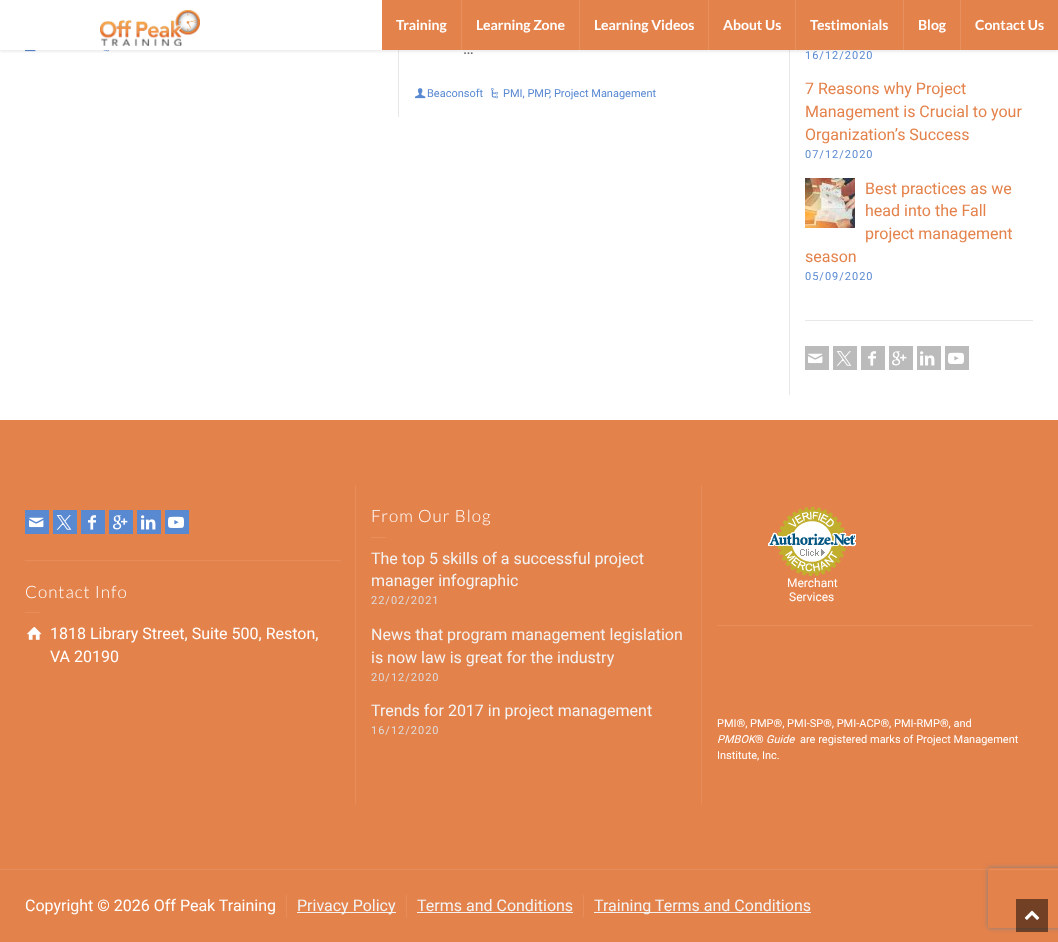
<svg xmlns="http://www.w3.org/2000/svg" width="1058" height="942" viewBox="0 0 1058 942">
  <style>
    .t1 { font: bold 14px Lato; fill: #fff; }
    .t2 { font: 16px Roboto; fill: #666; }
    .t3 { font: 11px Roboto; fill: #5989d1; }
    .t4 { font: 11px Roboto; letter-spacing: 1px; fill: #5989d1; }
    .t5 { font: 16px Roboto; fill: #e4824b; }
    .t6 { font: 300 17px Lato; letter-spacing: 1px; fill: #fff; }
    .t7 { font: 16px Roboto; fill: #fff; }
    .t8 { font: 16px Roboto; fill: #f3f3f3; }
    .t9 { font: 11px Roboto; letter-spacing: 1px; fill: #ddd; }
    .t10 { font: 12px Roboto; fill: #fff; }
    .t11 { font: 11px Roboto; fill: #fff; }
    .t12 { font: italic 11px Roboto; fill: #fff; }
  </style>
  <defs>
    <clipPath id="clip1"><path d="M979 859H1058V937H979ZM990 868H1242C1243 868 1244 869 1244 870V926C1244 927 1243 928 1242 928H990C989 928 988 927 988 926V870C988 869 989 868 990 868Z" clip-rule="evenodd"/></clipPath>
  </defs>
  <rect width="100%" height="100%" fill="#fff"/>
  <image x="25" y="50" width="11" height="2" href="images/2.png"/>
  <image x="103" y="50" width="6" height="2" href="images/3.png"/>
  <rect x="398" y="50" width="1" height="67" fill="#e8e8e8"/>
  <rect x="789" y="50" width="1" height="345" fill="#e8e8e8"/>
  <rect x="0" y="2" width="1058" height="50" fill="#00000012" filter="blur(1px)"/>
  <rect x="0" y="1" width="382" height="49" fill="#fff"/>
  <image x="100" y="10" width="100" height="36" href="images/1.png"/>
  <rect x="382" y="0" width="79" height="50" fill="#e4824b"/>
  <rect x="461" y="0" width="1" height="50" fill="#e79161"/>
  <text x="396" y="30" class="t1">Training</text>
  <rect x="462" y="0" width="117" height="50" fill="#e4824b"/>
  <rect x="579" y="0" width="1" height="50" fill="#e79161"/>
  <text x="476" y="30" class="t1">Learning Zone</text>
  <rect x="580" y="0" width="128" height="50" fill="#e4824b"/>
  <rect x="708" y="0" width="1" height="50" fill="#e79161"/>
  <text x="594" y="30" class="t1">Learning Videos</text>
  <rect x="709" y="0" width="86" height="50" fill="#e4824b"/>
  <rect x="795" y="0" width="1" height="50" fill="#e79161"/>
  <text x="723" y="30" class="t1">About Us</text>
  <rect x="796" y="0" width="107" height="50" fill="#e4824b"/>
  <rect x="903" y="0" width="1" height="50" fill="#e79161"/>
  <text x="810" y="30" class="t1">Testimonials</text>
  <rect x="904" y="0" width="56" height="50" fill="#e4824b"/>
  <rect x="960" y="0" width="1" height="50" fill="#e79161"/>
  <text x="918" y="30" class="t1">Blog</text>
  <rect x="961" y="0" width="97" height="50" fill="#e4824b"/>
  <text x="975" y="30" class="t1">Contact Us</text>
  <text x="463" y="54" class="t2">…</text>
  <image x="415" y="88" width="11" height="11" href="images/4.png"/>
  <text x="427" y="97" class="t3">Beaconsoft</text>
  <image x="491" y="88" width="7" height="11" href="images/5.png"/>
  <text x="503" y="97" class="t3">PMI, PMP</text>
  <text x="549" y="97" class="t3">, Project Management</text>
  <text x="805" y="59" class="t4">16/12/2020</text>
  <text x="805" y="94" class="t5">7 Reasons why Project</text>
  <text x="805" y="117" class="t5">Management is Crucial to your</text>
  <text x="805" y="140" class="t5">Organization’s Success</text>
  <text x="805" y="158" class="t4">07/12/2020</text>
  <image x="805" y="178" width="50" height="50" href="images/6.png"/>
  <text x="865" y="194" class="t5">Best practices as we</text>
  <text x="865" y="216" class="t5">head into the Fall</text>
  <text x="865" y="239" class="t5">project management</text>
  <text x="805" y="262" class="t5">season</text>
  <text x="805" y="280" class="t4">05/09/2020</text>
  <rect x="805" y="320" width="228" height="1" fill="#e8e8e8"/>
  <rect x="805" y="346" width="24" height="24" fill="#bbb"/>
  <image x="808" y="353" width="15" height="11" href="images/7.png"/>
  <rect x="833" y="346" width="24" height="24" fill="#bbb"/>
  <image x="836" y="351" width="16" height="15" href="images/8.png"/>
  <rect x="861" y="346" width="24" height="24" fill="#bbb"/>
  <image x="868" y="351" width="8" height="15" href="images/9.png"/>
  <rect x="889" y="346" width="24" height="24" fill="#bbb"/>
  <image x="892" y="351" width="15" height="15" href="images/10.png"/>
  <rect x="917" y="346" width="24" height="24" fill="#bbb"/>
  <image x="920" y="351" width="15" height="15" href="images/11.png"/>
  <rect x="945" y="346" width="24" height="24" fill="#bbb"/>
  <image x="948" y="352" width="16" height="12" href="images/12.png"/>
  <rect x="0" y="420" width="1058" height="449" fill="#e4824b"/>
  <rect x="25" y="510" width="24" height="24" fill="#5989d1"/>
  <image x="29" y="517" width="15" height="11" href="images/13.png"/>
  <rect x="53" y="510" width="24" height="24" fill="#5989d1"/>
  <image x="56" y="515" width="16" height="15" href="images/14.png"/>
  <rect x="81" y="510" width="24" height="24" fill="#5989d1"/>
  <image x="88" y="515" width="8" height="15" href="images/15.png"/>
  <rect x="109" y="510" width="24" height="24" fill="#5989d1"/>
  <image x="113" y="515" width="15" height="15" href="images/16.png"/>
  <rect x="137" y="510" width="24" height="24" fill="#5989d1"/>
  <image x="141" y="515" width="15" height="15" href="images/17.png"/>
  <rect x="165" y="510" width="24" height="24" fill="#5989d1"/>
  <image x="168" y="516" width="16" height="12" href="images/18.png"/>
  <rect x="25" y="560" width="316" height="1" fill="#e68d5b"/>
  <text x="25" y="598" class="t6">Contact Info</text>
  <rect x="25" y="612" width="15" height="1" fill="#e68d5b"/>
  <image x="27" y="627" width="15" height="13" href="images/19.png"/>
  <text x="50" y="639" class="t7">1818 Library Street, Suite 500, Reston,</text>
  <text x="50" y="662" class="t7">VA 20190</text>
  <rect x="355" y="485" width="1" height="319" fill="#e68d5b"/>
  <text x="371" y="522" class="t6">From Our Blog</text>
  <rect x="371" y="537" width="15" height="1" fill="#e68d5b"/>
  <text x="371" y="564" class="t8">The top 5 skills of a successful project</text>
  <text x="371" y="586" class="t8">manager infographic</text>
  <text x="371" y="604" class="t9">22/02/2021</text>
  <text x="371" y="640" class="t8">News that program management legislation</text>
  <text x="371" y="663" class="t8">is now law is great for the industry</text>
  <text x="371" y="681" class="t9">20/12/2020</text>
  <text x="371" y="716" class="t8">Trends for 2017 in project management</text>
  <text x="371" y="734" class="t9">16/12/2020</text>
  <rect x="701" y="485" width="1" height="319" fill="#e68d5b"/>
  <image x="768" y="507" width="88" height="69" href="images/20.png"/>
  <text x="787" y="587" class="t10">Merchant</text>
  <text x="789" y="601" class="t10">Services</text>
  <rect x="717" y="625" width="316" height="1" fill="#e68d5b"/>
  <text x="717" y="727" class="t11">PMI®, PMP®, PMI-SP®, PMI-ACP®, PMI-RMP®, and</text>
  <text x="717" y="743" class="t12">PMBOK</text>
  <text x="755" y="743" class="t11">®</text>
  <text x="766" y="743" class="t12">Guide</text>
  <text x="800" y="743" class="t11">are registered marks of Project Management</text>
  <text x="717" y="759" class="t11">Institute, Inc.</text>
  <rect x="0" y="870" width="1058" height="72" fill="#e4824b"/>
  <rect x="0" y="869" width="1058" height="1" fill="#e68d5b"/>
  <text x="25" y="911" class="t7">Copyright © 2026 Off Peak Training</text>
  <rect x="286" y="895" width="1" height="22" fill="#e68d5b"/>
  <rect x="297" y="912" width="99" height="1" fill="#f3f3f3"/>
  <text x="297" y="911" class="t8">Privacy Policy</text>
  <rect x="406" y="895" width="1" height="22" fill="#e68d5b"/>
  <text x="417" y="911" class="t8">Terms and Conditions</text>
  <rect x="417" y="912" width="156" height="1" fill="#f3f3f3"/>
  <rect x="583" y="895" width="1" height="22" fill="#e68d5b"/>
  <rect x="594" y="912" width="217" height="1" fill="#f3f3f3"/>
  <text x="594" y="911" class="t8">Training Terms and Conditions</text>
  <g clip-path="url(#clip1)">
    <rect x="988" y="868" width="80" height="60" rx="2" fill="#808080" filter="blur(2.5px)"/>
  </g>
  <rect x="1016" y="899" width="32" height="33" fill="#00000080"/>
  <image x="1024" y="910" width="16" height="10" href="images/21.png"/>
</svg>
